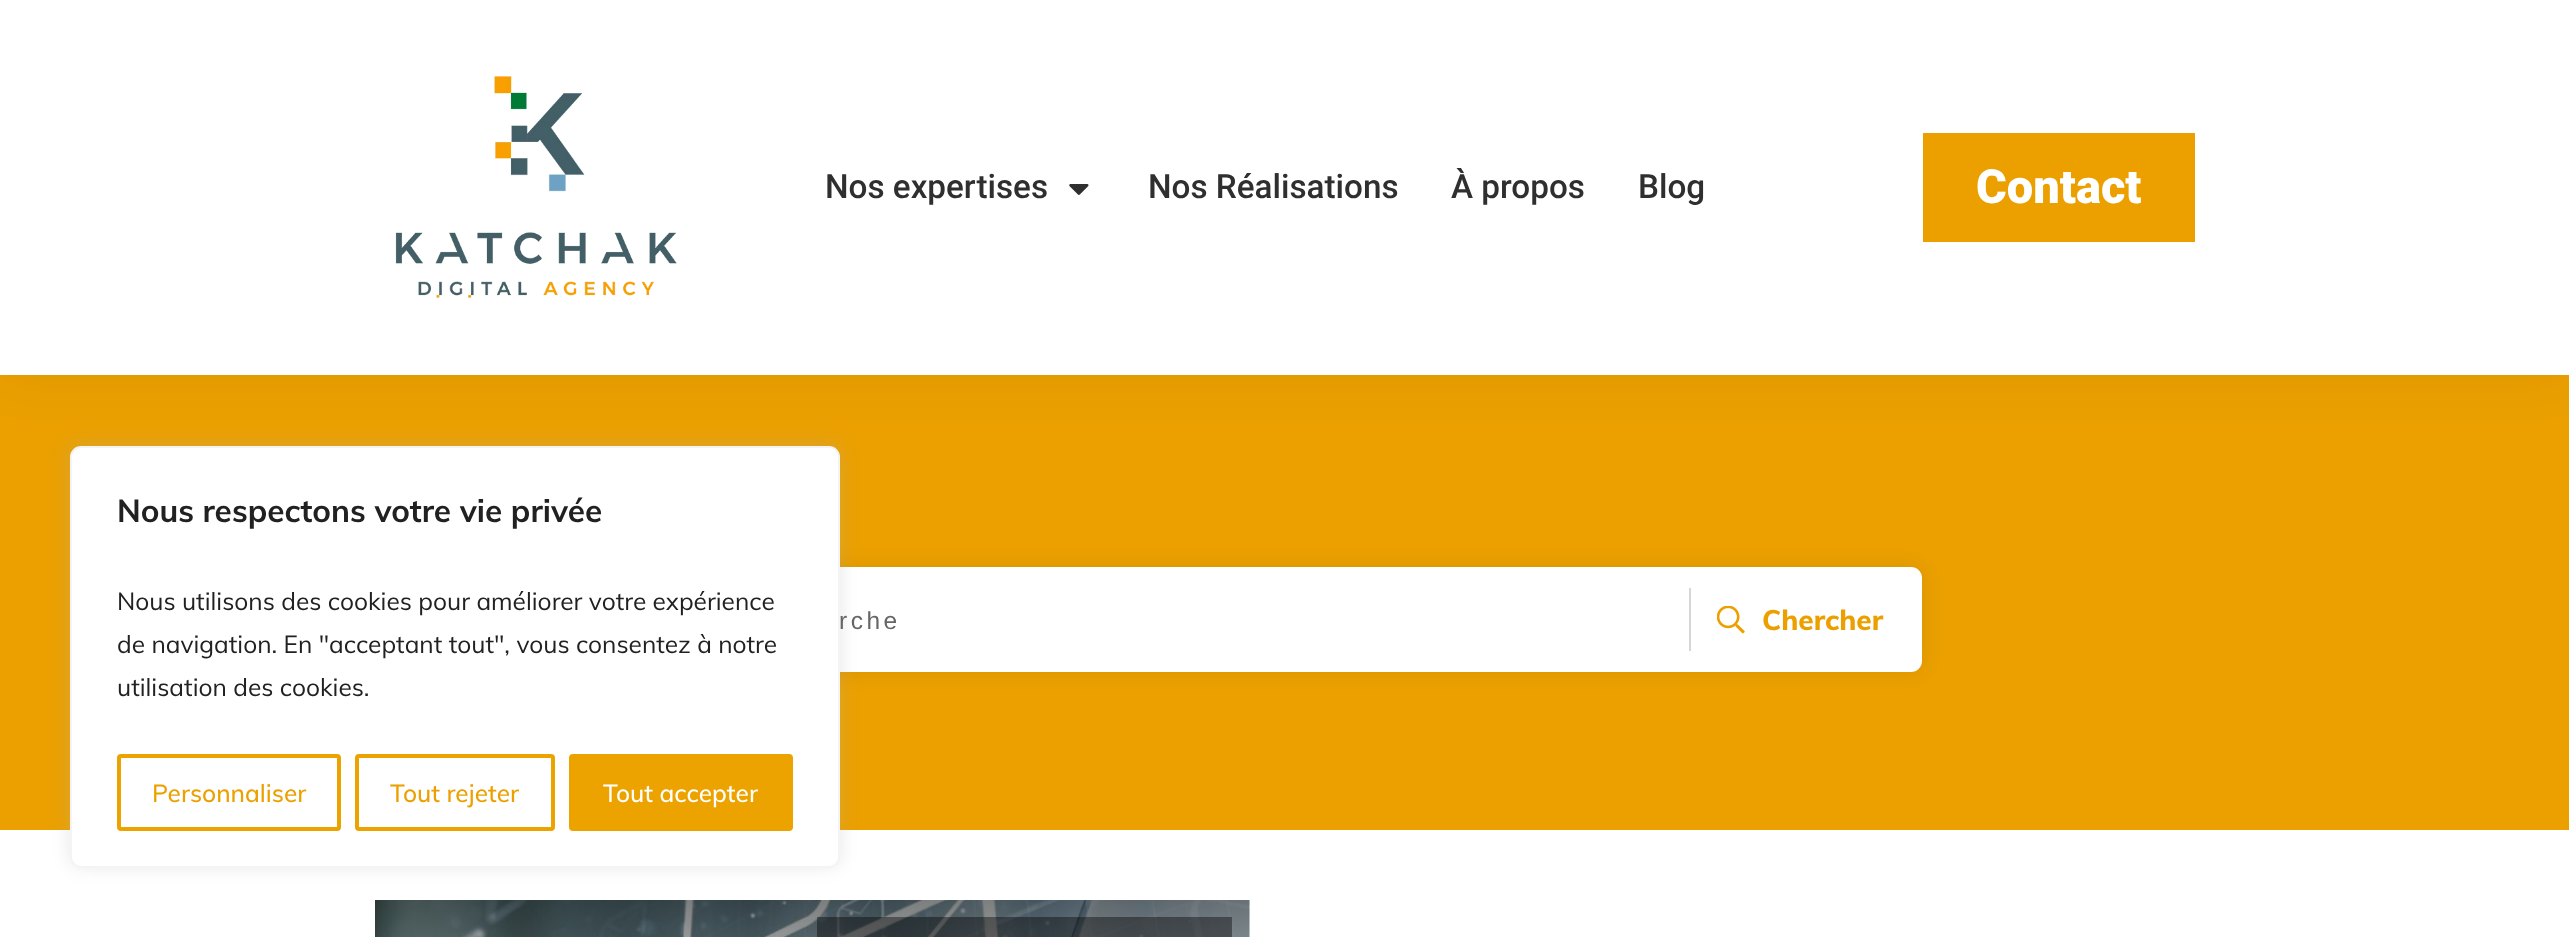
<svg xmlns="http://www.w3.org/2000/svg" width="2569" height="937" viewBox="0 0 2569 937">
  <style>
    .t1 { font: bold 31.5px Muli; fill: #212121; }
    .t2 { font: 24.5px Muli; fill: #212121; }
    .t3 { font: 500 24.5px Muli; fill: #eba000; }
    .t4 { font: 500 24.5px Muli; fill: #fff; }
    .t5 { font: 500 33.25px Roboto; fill: #2f2f2f; }
    .t6 { font: 900 47px Roboto; fill: #fff; }
    .t7 { font: 24.5px Liberation Sans; letter-spacing: 3.5px; fill: #666; }
    .t8 { font: 800 28px Muli; fill: #eba000; }
  </style>
  <rect width="100%" height="100%" fill="#fff"/>
  <rect x="0" y="375" width="2569" height="455" fill="#eba000"/>
  <rect x="648" y="567" width="1274" height="105" rx="11" fill="#00000014" filter="blur(9.5px)"/>
  <rect x="648" y="567" width="1274" height="105" rx="11" fill="#fff"/>
  <rect x="70" y="445" width="770" height="421" rx="11" fill="#acabab4d" filter="blur(9px)"/>
  <rect x="0" y="4" width="2569" height="374" fill="#0000000d" filter="blur(26px)"/>
  <rect x="71" y="447" width="768" height="420" rx="10" fill="#fff" stroke="#f4f4f4" stroke-width="2"/>
  <text x="117" y="522" class="t1">Nous respectons votre vie privée</text>
  <text x="117" y="610" class="t2">Nous utilisons des cookies pour améliorer votre expérience</text>
  <text x="117" y="653" class="t2">de navigation. En "acceptant tout", vous consentez à notre</text>
  <text x="117" y="696" class="t2">utilisation des cookies.</text>
  <rect x="119" y="756" width="220" height="73" rx="2" fill="none" stroke="#eca300" stroke-width="4"/>
  <text x="152" y="802" class="t3">Personnaliser</text>
  <rect x="357" y="756" width="196" height="73" rx="2" fill="none" stroke="#eca300" stroke-width="4"/>
  <text x="390" y="802" class="t3">Tout rejeter</text>
  <rect x="571" y="756" width="220" height="73" rx="2" fill="#eca300" stroke="#eca300" stroke-width="4"/>
  <text x="603" y="802" class="t4">Tout accepter</text>
  <rect x="0" y="0" width="2569" height="375" fill="#fff"/>
  <image x="395" y="76" width="282" height="222" href="images/1.png"/>
  <text x="825" y="198" class="t5">Nos expertises</text>
  <image x="1069" y="184" width="20" height="11" href="images/2.png"/>
  <text x="1148" y="198" class="t5">Nos Réalisations</text>
  <text x="1451" y="198" class="t5">À propos</text>
  <text x="1638" y="198" class="t5">Blog</text>
  <rect x="1923" y="133" width="272" height="109" fill="#eba000"/>
  <text x="1976" y="203" class="t6">Contact</text>
  <text x="839" y="629" class="t7">rche</text>
  <rect x="1689" y="588" width="2" height="63" fill="#d6d6d6"/>
  <image x="1717" y="606" width="28" height="28" href="images/3.png"/>
  <text x="1762" y="630" class="t8">Chercher</text>
  <image x="375" y="900" width="875" height="37" href="images/4.png"/>
  <rect x="817" y="917" width="415" height="20" fill="#00000066"/>
</svg>
